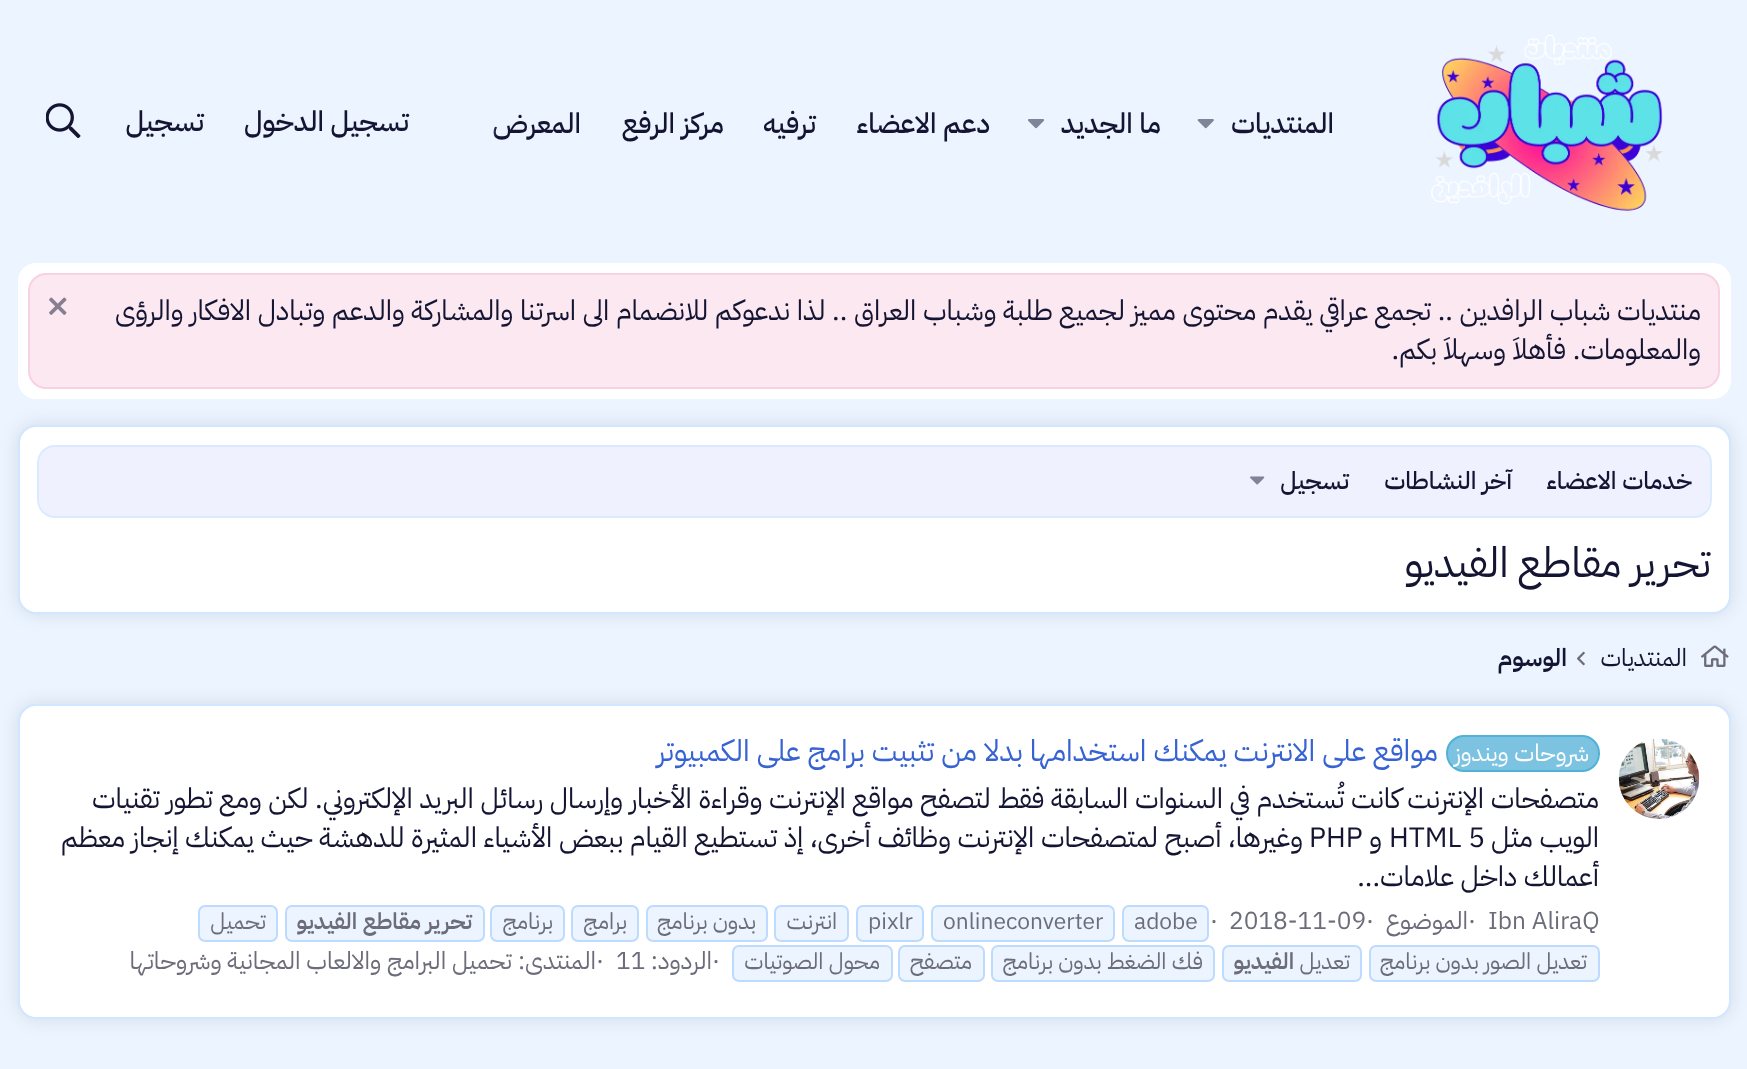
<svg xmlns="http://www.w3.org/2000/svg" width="1747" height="1069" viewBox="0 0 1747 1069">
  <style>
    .t1 { font: 500 28px IBM Plex Sans Arabic; direction: rtl; fill: #141433; }
    .t2 { font: 28px IBM Plex Sans Arabic; direction: rtl; fill: #141433; }
    .t3 { font: 500 24.5px IBM Plex Sans Arabic; direction: rtl; fill: #141433; }
    .t4 { font: 42px IBM Plex Sans Arabic; direction: rtl; fill: #141433; }
    .t5 { font: 24.5px IBM Plex Sans Arabic; direction: rtl; fill: #141433; }
    .t6 { font: 600 24.5px IBM Plex Sans Arabic; direction: rtl; fill: #141433; }
    .t7 { font: 23.75px IBM Plex Sans Arabic; direction: rtl; fill: #fff; }
    .t8 { font: 29.75px IBM Plex Sans Arabic; direction: rtl; fill: #3763d2; }
    .t9 { font: 28px IBM Plex Sans Arabic; fill: #141433; }
    .t10 { font: 24.5px IBM Plex Sans Arabic; fill: #6c6c7a; }
    .t11 { font: 24.5px IBM Plex Sans Arabic; direction: rtl; fill: #6c6c7a; }
    .t12 { font: 22.75px IBM Plex Sans Arabic; fill: #6c6c7a; }
    .t13 { font: 22.75px IBM Plex Sans Arabic; direction: rtl; fill: #6c6c7a; }
    .t14 { font: 600 22.75px IBM Plex Sans Arabic; direction: rtl; fill: #6c6c7a; }
  </style>
  <defs>
    <linearGradient id="g1" gradientUnits="userSpaceOnUse" x1="497" y1="124" x2="427" y2="124"><stop offset="0" stop-color="#ebf4ff" stop-opacity="0"/><stop offset="0.33" stop-color="#ebf4ff"/></linearGradient>
  </defs>
  <rect width="100%" height="100%" fill="#ebf4ff"/>
  <image x="1431" y="34" width="232" height="177" href="images/1.png"/>
  <text x="1334" y="133" class="t1">المنتديات</text>
  <image x="1197" y="119" width="17" height="10" href="images/2.png"/>
  <text x="1161" y="133" class="t1">ما الجديد</text>
  <image x="1028" y="119" width="17" height="10" href="images/3.png"/>
  <text x="990" y="133" class="t1">دعم الاعضاء</text>
  <text x="816" y="133" class="t1">ترفيه</text>
  <text x="724" y="133" class="t1">مركز الرفع</text>
  <text x="581" y="133" class="t1">المعرض</text>
  <image x="474" y="119" width="2" height="3" href="images/4.png"/>
  <rect x="474" y="119" width="23" height="19" fill="url(#g1)"/>
  <text x="409" y="131" class="t1">تسجيل الدخول</text>
  <text x="204" y="131" class="t1">تسجيل</text>
  <image x="46" y="103" width="35" height="35" href="images/5.png"/>
  <rect x="18" y="263" width="1713" height="136" rx="18" fill="#fff"/>
  <rect x="28" y="273" width="1692" height="116" rx="18" fill="#fce8f0"/>
  <rect x="29" y="274" width="1690" height="114" rx="17" fill="none" stroke="#de12631a" stroke-width="2"/>
  <text x="1701" y="320" class="t2">منتديات شباب الرافدين .. تجمع عراقي يقدم محتوى مميز لجميع طلبة وشباب العراق .. لذا ندعوكم للانضمام الى اسرتنا والمشاركة والدعم وتبادل الافكار والرؤى</text>
  <image x="49" y="297" width="18" height="18" href="images/6.png"/>
  <text x="1701" y="359" class="t2">والمعلومات. فأهلاَ وسهلاَ بكم.</text>
  <rect x="18" y="425" width="1713" height="189" rx="18" fill="#0000001a" filter="blur(9px)"/>
  <rect x="19" y="426" width="1711" height="187" rx="17" fill="#fff" stroke="#d1e6ff" stroke-width="2"/>
  <rect x="38" y="446" width="1673" height="71" rx="17" fill="#f0f1ff" stroke="#dbebff" stroke-width="2"/>
  <text x="1692" y="489" class="t3">خدمات الاعضاء</text>
  <text x="1512" y="489" class="t3">آخر النشاطات</text>
  <text x="1349" y="489" class="t3">تسجيل</text>
  <image x="1250" y="476" width="15" height="9" href="images/7.png"/>
  <text x="1711" y="577" class="t4">تحرير مقاطع الفيديو</text>
  <image x="1701" y="645" width="28" height="22" href="images/8.png"/>
  <text x="1687" y="666" class="t5">المنتديات</text>
  <image x="1577" y="651" width="8" height="15" href="images/9.png"/>
  <text x="1567" y="666" class="t6">الوسوم</text>
  <rect x="18" y="704" width="1713" height="315" rx="18" fill="#0000001a" filter="blur(9px)"/>
  <rect x="19" y="705" width="1711" height="313" rx="17" fill="#fff" stroke="#d1e6ff" stroke-width="2"/>
  <image x="1618" y="738" width="82" height="81" href="images/10.png"/>
  <rect x="1447" y="736" width="152" height="35" rx="17" fill="#7bc3e0" stroke="#51b1d6" stroke-width="2"/>
  <text x="1589" y="761" class="t7">شروحات ويندوز</text>
  <text x="1438" y="761" class="t8">مواقع على الانترنت يمكنك استخدامها بدلا من تثبيت برامج على الكمبيوتر</text>
  <text x="1599" y="808" class="t2">متصفحات الإنترنت كانت تُستخدم في السنوات السابقة فقط لتصفح مواقع الإنترنت وقراءة الأخبار وإرسال رسائل البريد الإلكتروني. لكن ومع تطور تقنيات</text>
  <text x="1599" y="847" class="t2">الويب مثل</text>
  <text x="1389" y="847" class="t9">HTML 5</text>
  <text x="1382" y="847" class="t2">و</text>
  <text x="1309" y="847" class="t9">PHP</text>
  <text x="1303" y="847" class="t2">وغيرها، أصبح لمتصفحات الإنترنت وظائف أخرى، إذ تستطيع القيام ببعض الأشياء المثيرة للدهشة حيث يمكنك إنجاز معظم</text>
  <text x="1599" y="886" class="t2">أعمالك داخل علامات...</text>
  <text x="1488" y="929" class="t10">Ibn AliraQ</text>
  <text x="1468" y="929" class="t11">الموضوع</text>
  <text x="1229" y="929" class="t10">2018-11-09</text>
  <text x="1210" y="929" class="t10">·</text>
  <rect x="1123" y="906" width="85" height="35" rx="6" fill="#ebf4ff" stroke="#bddbff" stroke-width="2"/>
  <text x="1134" y="929" class="t12">adobe</text>
  <rect x="932" y="906" width="182" height="35" rx="6" fill="#ebf4ff" stroke="#bddbff" stroke-width="2"/>
  <text x="943" y="929" class="t12">onlineconverter</text>
  <rect x="857" y="906" width="66" height="35" rx="6" fill="#ebf4ff" stroke="#bddbff" stroke-width="2"/>
  <text x="868" y="929" class="t12">pixlr</text>
  <rect x="775" y="906" width="73" height="35" rx="6" fill="#ebf4ff" stroke="#bddbff" stroke-width="2"/>
  <text x="837" y="929" class="t13">انترنت</text>
  <rect x="647" y="906" width="120" height="35" rx="6" fill="#ebf4ff" stroke="#bddbff" stroke-width="2"/>
  <text x="756" y="929" class="t13">بدون برنامج</text>
  <rect x="572" y="906" width="66" height="35" rx="6" fill="#ebf4ff" stroke="#bddbff" stroke-width="2"/>
  <text x="627" y="929" class="t13">برامج</text>
  <rect x="491" y="906" width="73" height="35" rx="6" fill="#ebf4ff" stroke="#bddbff" stroke-width="2"/>
  <text x="553" y="929" class="t13">برنامج</text>
  <rect x="286" y="906" width="198" height="35" rx="6" fill="#ebf4ff" stroke="#bddbff" stroke-width="2"/>
  <text x="472" y="929" class="t14">تحرير</text>
  <text x="421" y="929" class="t14">مقاطع</text>
  <text x="357" y="929" class="t14">الفيديو</text>
  <rect x="199" y="906" width="78" height="35" rx="6" fill="#ebf4ff" stroke="#bddbff" stroke-width="2"/>
  <text x="266" y="929" class="t13">تحميل</text>
  <rect x="1370" y="946" width="229" height="35" rx="6" fill="#ebf4ff" stroke="#bddbff" stroke-width="2"/>
  <text x="1587" y="969" class="t13">تعديل الصور بدون برنامج</text>
  <rect x="1223" y="946" width="138" height="35" rx="6" fill="#ebf4ff" stroke="#bddbff" stroke-width="2"/>
  <text x="1350" y="969" class="t13">تعديل</text>
  <text x="1294" y="969" class="t14">الفيديو</text>
  <rect x="992" y="946" width="222" height="35" rx="6" fill="#ebf4ff" stroke="#bddbff" stroke-width="2"/>
  <text x="1203" y="969" class="t13">فك الضغط بدون برنامج</text>
  <rect x="899" y="946" width="85" height="35" rx="6" fill="#ebf4ff" stroke="#bddbff" stroke-width="2"/>
  <text x="972" y="969" class="t13">متصفح</text>
  <rect x="733" y="946" width="159" height="35" rx="6" fill="#ebf4ff" stroke="#bddbff" stroke-width="2"/>
  <text x="880" y="969" class="t13">محول الصوتيات</text>
  <text x="1468" y="929" class="t10">·</text>
  <text x="1366" y="929" class="t10">·</text>
  <text x="712" y="969" class="t10">·</text>
  <text x="712" y="969" class="t11">الردود:</text>
  <text x="616" y="969" class="t10">11</text>
  <text x="596" y="969" class="t10">·</text>
  <text x="596" y="969" class="t11">المنتدى:</text>
  <text x="512" y="969" class="t11">تحميل البرامج والالعاب المجانية وشروحاتها</text>
</svg>
